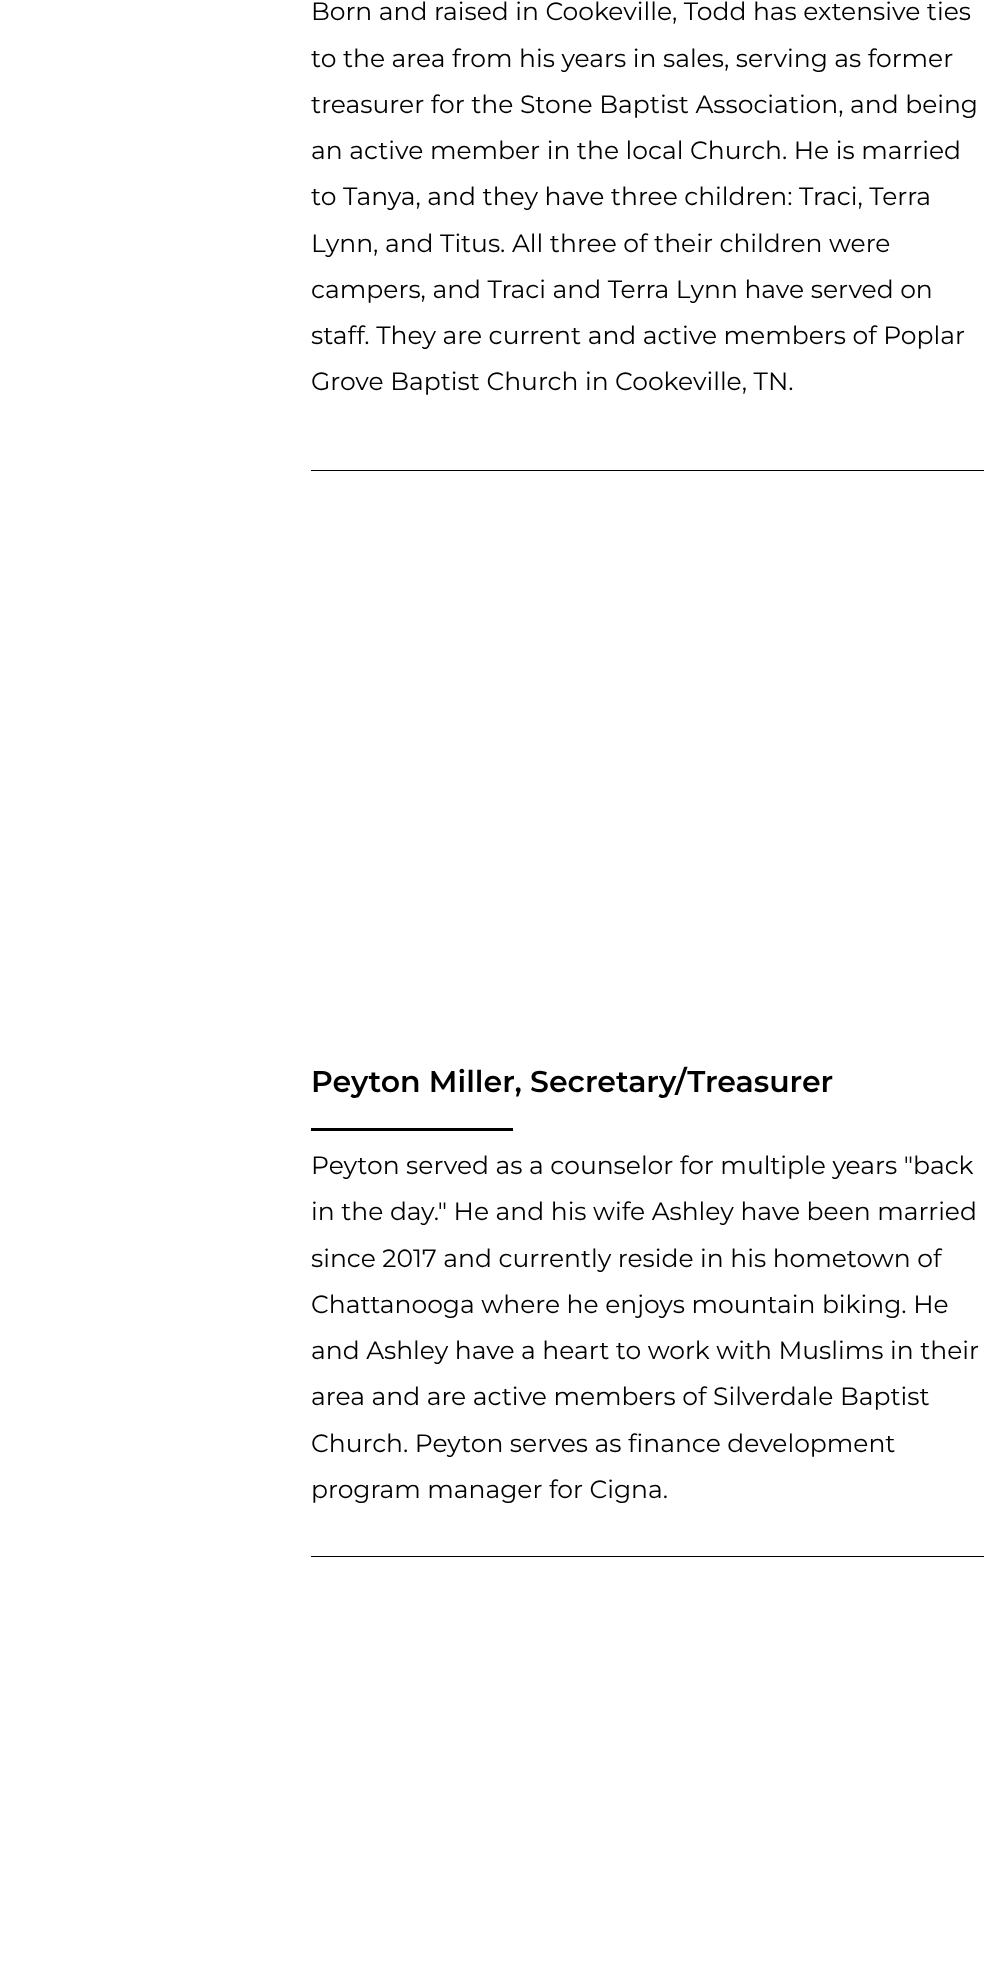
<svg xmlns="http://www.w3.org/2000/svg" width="996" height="1985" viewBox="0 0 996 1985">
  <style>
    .t1 { font: 25px Montserrat; fill: #000; }
    .t2 { font: 600 30px Montserrat; fill: #000; }
  </style>
  <rect width="100%" height="100%" fill="#fff"/>
  <text x="311" y="20" class="t1">Born and raised in Cookeville, Todd has extensive ties</text>
  <text x="311" y="67" class="t1">to the area from his years in sales, serving as former</text>
  <text x="311" y="113" class="t1">treasurer for the Stone Baptist Association, and being</text>
  <text x="311" y="159" class="t1">an active member in the local Church. He is married</text>
  <text x="311" y="205" class="t1">to Tanya, and they have three children: Traci, Terra</text>
  <text x="311" y="252" class="t1">Lynn, and Titus. All three of their children were</text>
  <text x="311" y="298" class="t1">campers, and Traci and Terra Lynn have served on</text>
  <text x="311" y="344" class="t1">staff. They are current and active members of Poplar</text>
  <text x="311" y="390" class="t1">Grove Baptist Church in Cookeville, TN.</text>
  <rect x="311" y="470" width="673" height="1" fill="#000"/>
  <text x="311" y="1092" class="t2">Peyton Miller, Secretary/Treasurer</text>
  <rect x="311" y="1128" width="202" height="3" fill="#000"/>
  <text x="311" y="1174" class="t1">Peyton served as a counselor for multiple years "back</text>
  <text x="311" y="1220" class="t1">in the day." He and his wife Ashley have been married</text>
  <text x="311" y="1267" class="t1">since 2017 and currently reside in his hometown of</text>
  <text x="311" y="1313" class="t1">Chattanooga where he enjoys mountain biking. He</text>
  <text x="311" y="1359" class="t1">and Ashley have a heart to work with Muslims in their</text>
  <text x="311" y="1405" class="t1">area and are active members of Silverdale Baptist</text>
  <text x="311" y="1452" class="t1">Church. Peyton serves as finance development</text>
  <text x="311" y="1498" class="t1">program manager for Cigna.</text>
  <rect x="311" y="1556" width="673" height="1" fill="#000"/>
</svg>
